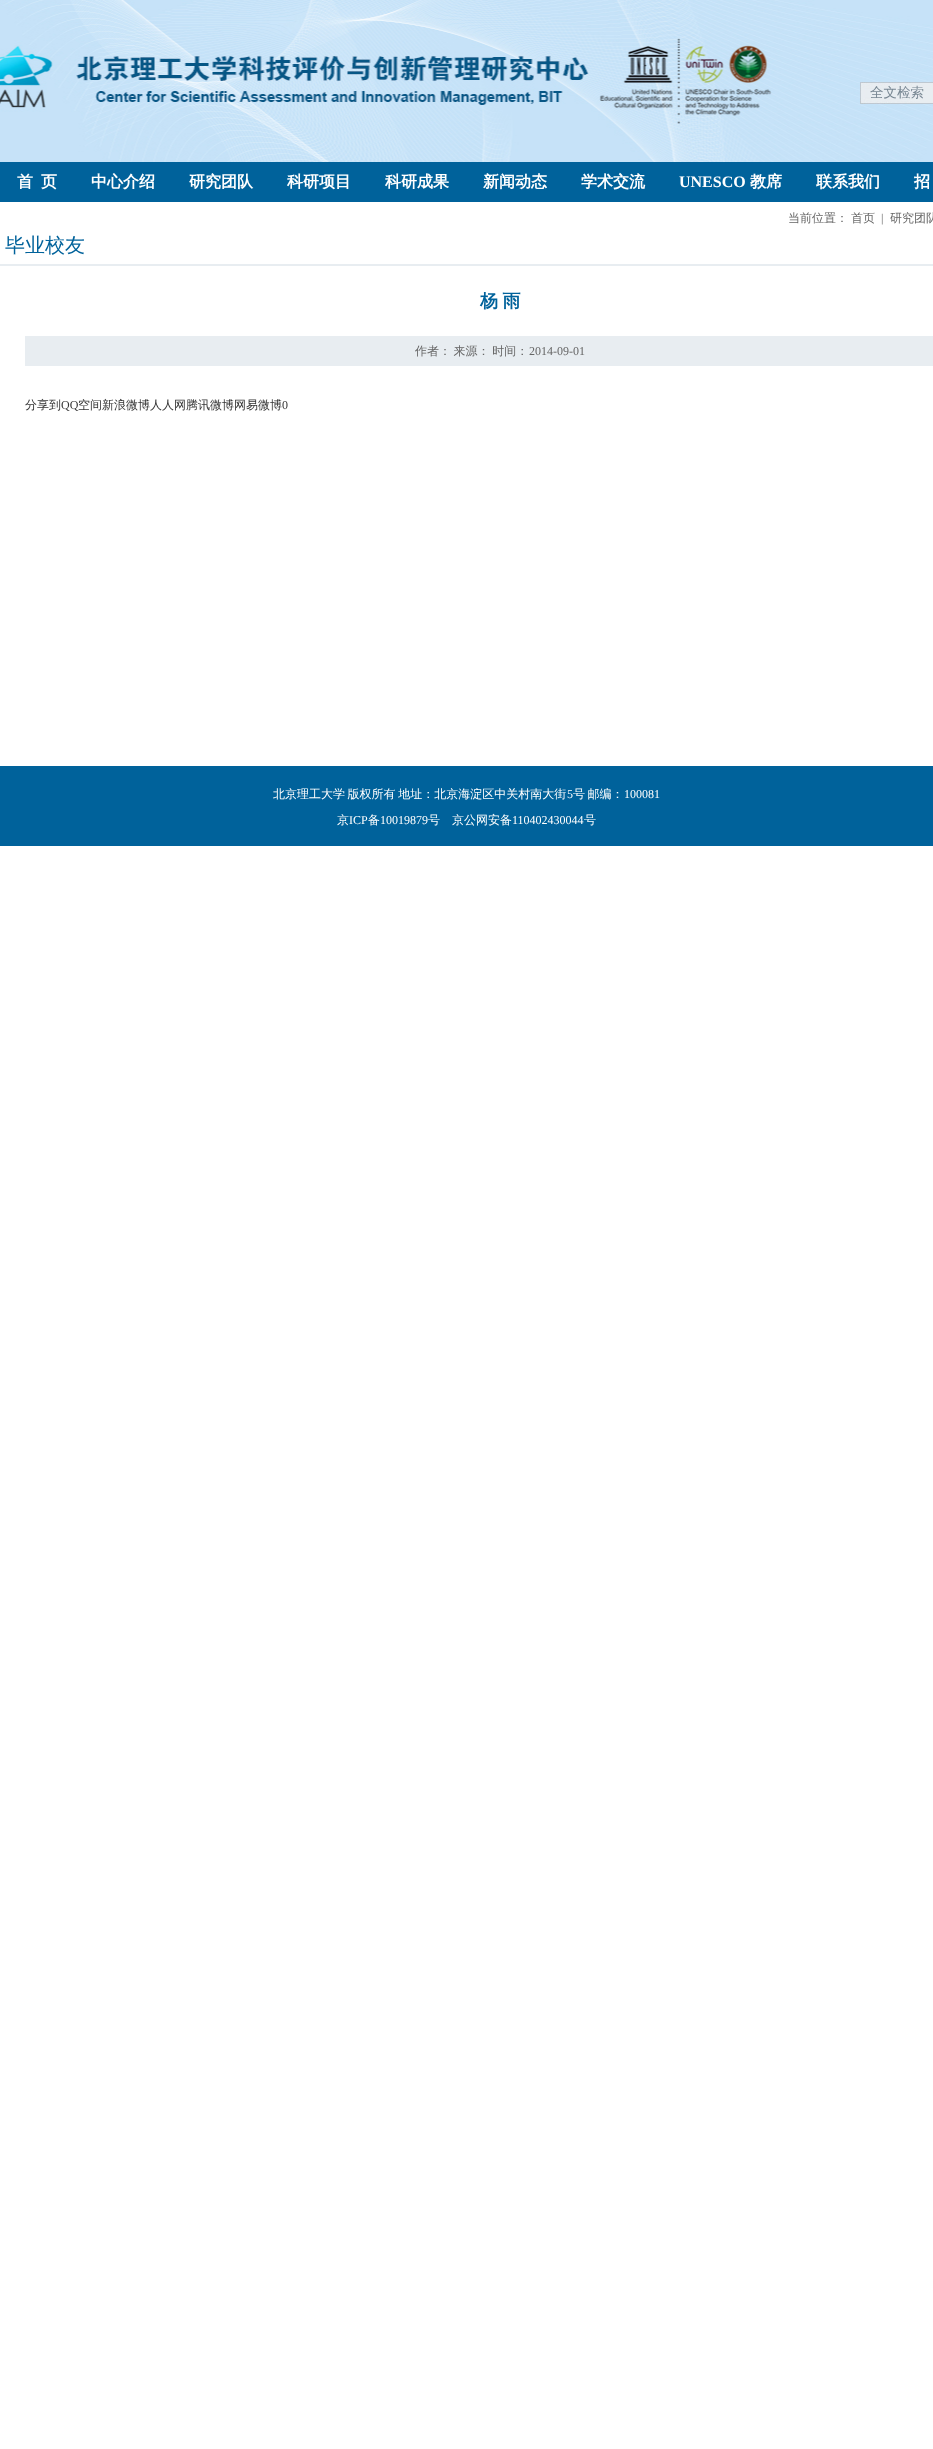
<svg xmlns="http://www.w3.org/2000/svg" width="933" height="2449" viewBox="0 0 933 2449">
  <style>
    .t1 { font: 500 13.5px WenQuanYi Zen Hei; fill: #788793; }
    .t2 { font: bold 16px WenQuanYi Zen Hei; fill: #fff; }
    .t3 { font: bold 16px Liberation Serif; fill: #fff; }
    .t4 { font: 500 12px WenQuanYi Zen Hei; fill: #666; }
    .t5 { font: 12px Liberation Serif; fill: #666; }
    .t6 { font: 500 20px WenQuanYi Zen Hei; fill: #00629b; }
    .t7 { font: bold 18px WenQuanYi Zen Hei; fill: #00629b; }
    .t8 { font: 500 12px WenQuanYi Zen Hei; fill: #333; }
    .t9 { font: 12px Liberation Serif; fill: #333; }
    .t10 { font: 500 12px WenQuanYi Zen Hei; fill: #fff; }
    .t11 { font: 12px Liberation Serif; fill: #fff; }
  </style>
  <rect width="100%" height="100%" fill="#fff"/>
  <image x="0" y="162" width="933" height="40" href="images/1.png"/>
  <image x="0" y="0" width="933" height="162" href="images/2.png"/>
  <image x="860" y="82" width="73" height="22" href="images/3.png"/>
  <text x="870" y="97" class="t1">全文检索</text>
  <text x="17" y="187" class="t2">首</text>
  <text x="41" y="187" class="t2">页</text>
  <text x="91" y="187" class="t2">中心介绍</text>
  <text x="189" y="187" class="t2">研究团队</text>
  <text x="287" y="187" class="t2">科研项目</text>
  <text x="385" y="187" class="t2">科研成果</text>
  <text x="483" y="187" class="t2">新闻动态</text>
  <text x="581" y="187" class="t2">学术交流</text>
  <text x="679" y="187" class="t3">UNESCO</text>
  <text x="750" y="187" class="t2">教席</text>
  <text x="816" y="187" class="t2">联系我们</text>
  <text x="914" y="187" class="t2">招</text>
  <text x="788" y="222" class="t4">当前位置：</text>
  <text x="851" y="222" class="t4">首页</text>
  <text x="881" y="222" class="t5">|</text>
  <text x="890" y="222" class="t4">研究团队</text>
  <rect x="0" y="264" width="933" height="2" fill="#e8edf1"/>
  <text x="5" y="252" class="t6">毕业校友</text>
  <text x="480" y="307" word-spacing="-1" class="t7">杨 雨</text>
  <rect x="25" y="336" width="908" height="30" fill="#e8edf1"/>
  <text x="415" y="355" word-spacing="-1" class="t4">作者： 来源： 时间：</text>
  <text x="529" y="355" class="t5">2014-09-01</text>
  <text x="25" y="409" class="t8">分享到</text>
  <text x="61" y="409" class="t9">QQ</text>
  <text x="78" y="409" class="t8">空间新浪微博人人网腾讯微博网易微博</text>
  <text x="282" y="409" class="t9">0</text>
  <rect x="0" y="766" width="933" height="80" fill="#00629b"/>
  <text x="273" y="798" word-spacing="-1" class="t10">北京理工大学 版权所有 地址：北京海淀区中关村南大街</text>
  <text x="567" y="798" class="t11">5</text>
  <text x="573" y="798" word-spacing="-1" class="t10">号 邮编：</text>
  <text x="624" y="798" class="t11">100081</text>
  <text x="337" y="824" class="t10">京</text>
  <text x="349" y="824" class="t11">ICP</text>
  <text x="368" y="824" class="t10">备</text>
  <text x="380" y="824" class="t11">10019879</text>
  <text x="428" y="824" class="t10">号　京公网安备</text>
  <text x="512" y="824" class="t11">110402430044</text>
  <text x="584" y="824" class="t10">号</text>
</svg>
